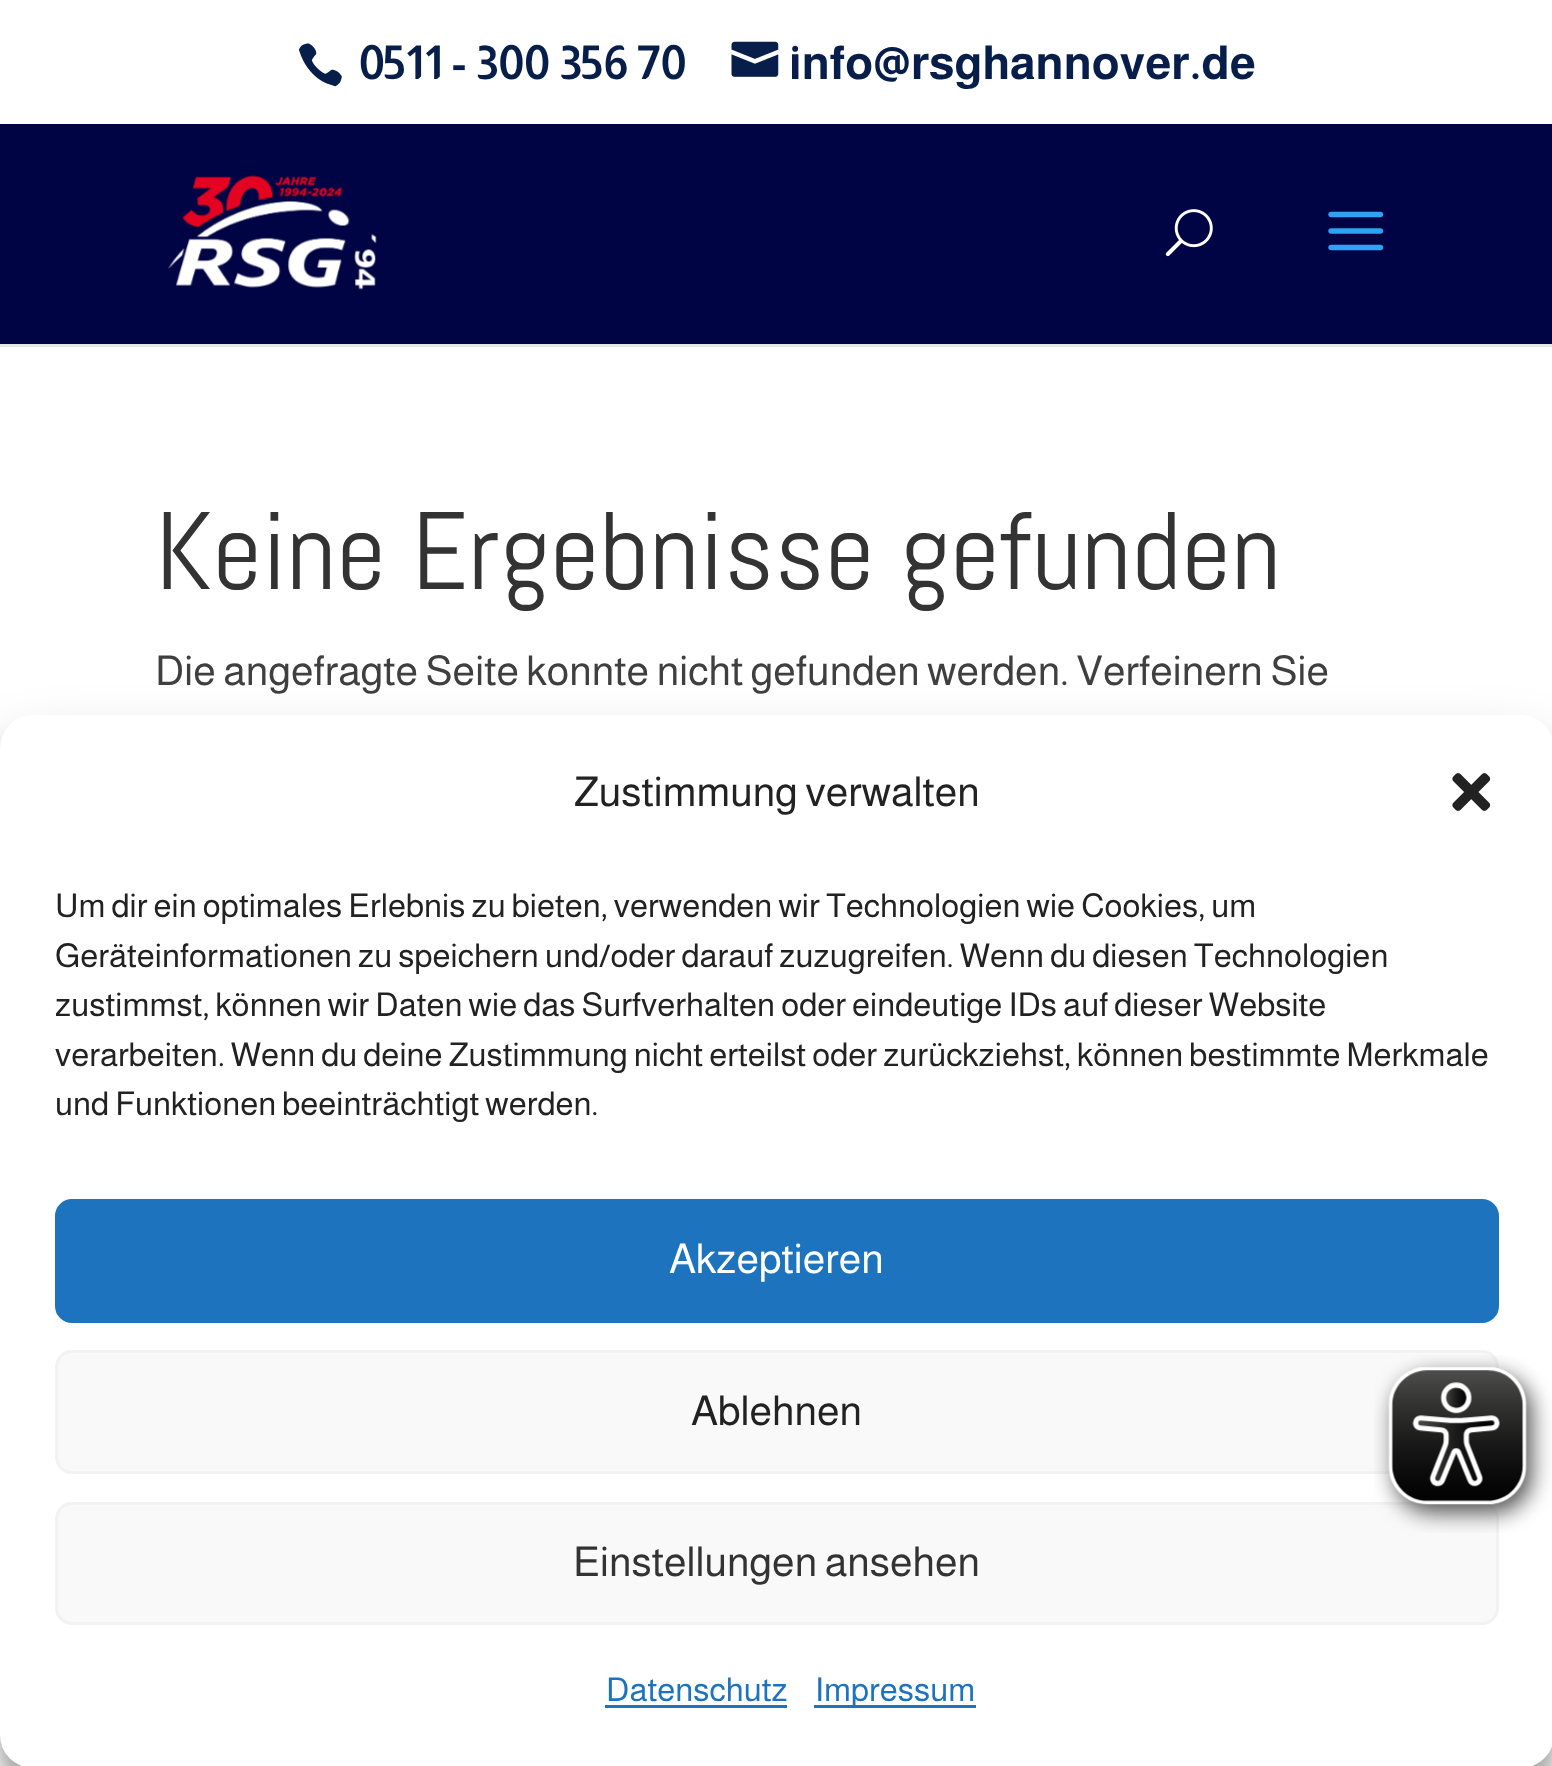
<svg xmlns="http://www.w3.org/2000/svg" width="1552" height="1766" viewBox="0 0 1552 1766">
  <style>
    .t1 { font: bold 46.75px Almarai; fill: #061e49; }
    .t2 { font: 110px Abel; fill: #333; }
    .t3 { font: 41.25px Almarai; fill: #3f3f3f; }
    .t4 { font: 41.25px Almarai; fill: #222; }
    .t5 { font: 33px Almarai; fill: #222; }
    .t6 { font: 41.25px Almarai; fill: #fff; }
    .t7 { font: 41.25px Almarai; fill: #333; }
    .t8 { font: 33px Almarai; fill: #1e73be; }
  </style>
  <rect width="100%" height="100%" fill="#fff"/>
  <image x="298" y="43" width="44" height="44" href="images/1.png"/>
  <text x="359" y="79" class="t1">0511 - 300 356 70</text>
  <image x="731" y="41" width="48" height="36" href="images/2.png"/>
  <text x="789" y="79" class="t1">info@rsghannover.de</text>
  <path d="M0 344V347H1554V127V344Z" fill="#e6e6e6"/>
  <rect x="0" y="124" width="1552" height="220" fill="#000444"/>
  <image x="168" y="175" width="209" height="115" href="images/3.png"/>
  <image x="1165" y="209" width="48" height="48" href="images/4.png"/>
  <image x="1328" y="211" width="56" height="40" href="images/5.png"/>
  <text x="155" y="589" class="t2">Keine Ergebnisse gefunden</text>
  <text x="155" y="685" class="t3">Die angefragte Seite konnte nicht gefunden werden. Verfeinern Sie</text>
  <rect x="0" y="732" width="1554" height="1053" rx="33" fill="#0000003b" filter="blur(8px)"/>
  <rect x="0" y="743" width="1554" height="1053" rx="33" fill="#00000030" filter="blur(27.5px)"/>
  <rect x="0" y="715" width="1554" height="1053" rx="33" fill="#fff"/>
  <text x="574" y="806" class="t4">Zustimmung verwalten</text>
  <image x="1452" y="773" width="39" height="38" href="images/6.png"/>
  <text x="55" y="917" class="t5">Um dir ein optimales Erlebnis zu bieten, verwenden wir Technologien wie Cookies, um</text>
  <text x="55" y="967" class="t5">Geräteinformationen zu speichern und/oder darauf zuzugreifen. Wenn du diesen Technologien</text>
  <text x="55" y="1016" class="t5">zustimmst, können wir Daten wie das Surfverhalten oder eindeutige IDs auf dieser Website</text>
  <text x="55" y="1066" class="t5">verarbeiten. Wenn du deine Zustimmung nicht erteilst oder zurückziehst, können bestimmte Merkmale</text>
  <text x="55" y="1115" class="t5">und Funktionen beeinträchtigt werden.</text>
  <rect x="56.5" y="1200.5" width="1441" height="121" rx="15.5" fill="#1e73be" stroke="#1e73be" stroke-width="3"/>
  <text x="669" y="1273" class="t6">Akzeptieren</text>
  <rect x="56.5" y="1351.5" width="1441" height="121" rx="15.5" fill="#f9f9f9" stroke="#f2f2f2" stroke-width="3"/>
  <text x="691" y="1425" class="t4">Ablehnen</text>
  <rect x="56.5" y="1503.5" width="1441" height="120" rx="15.5" fill="#f9f9f9" stroke="#f2f2f2" stroke-width="3"/>
  <text x="573" y="1576" class="t7">Einstellungen ansehen</text>
  <text x="606" y="1701" class="t8">Datenschutz</text>
  <rect x="605" y="1705" width="182" height="3" fill="#1e73be"/>
  <rect x="814" y="1705" width="162" height="3" fill="#1e73be"/>
  <text x="815" y="1701" class="t8">Impressum</text>
  <image x="1374" y="1355" width="178" height="178" href="images/7.png"/>
</svg>
